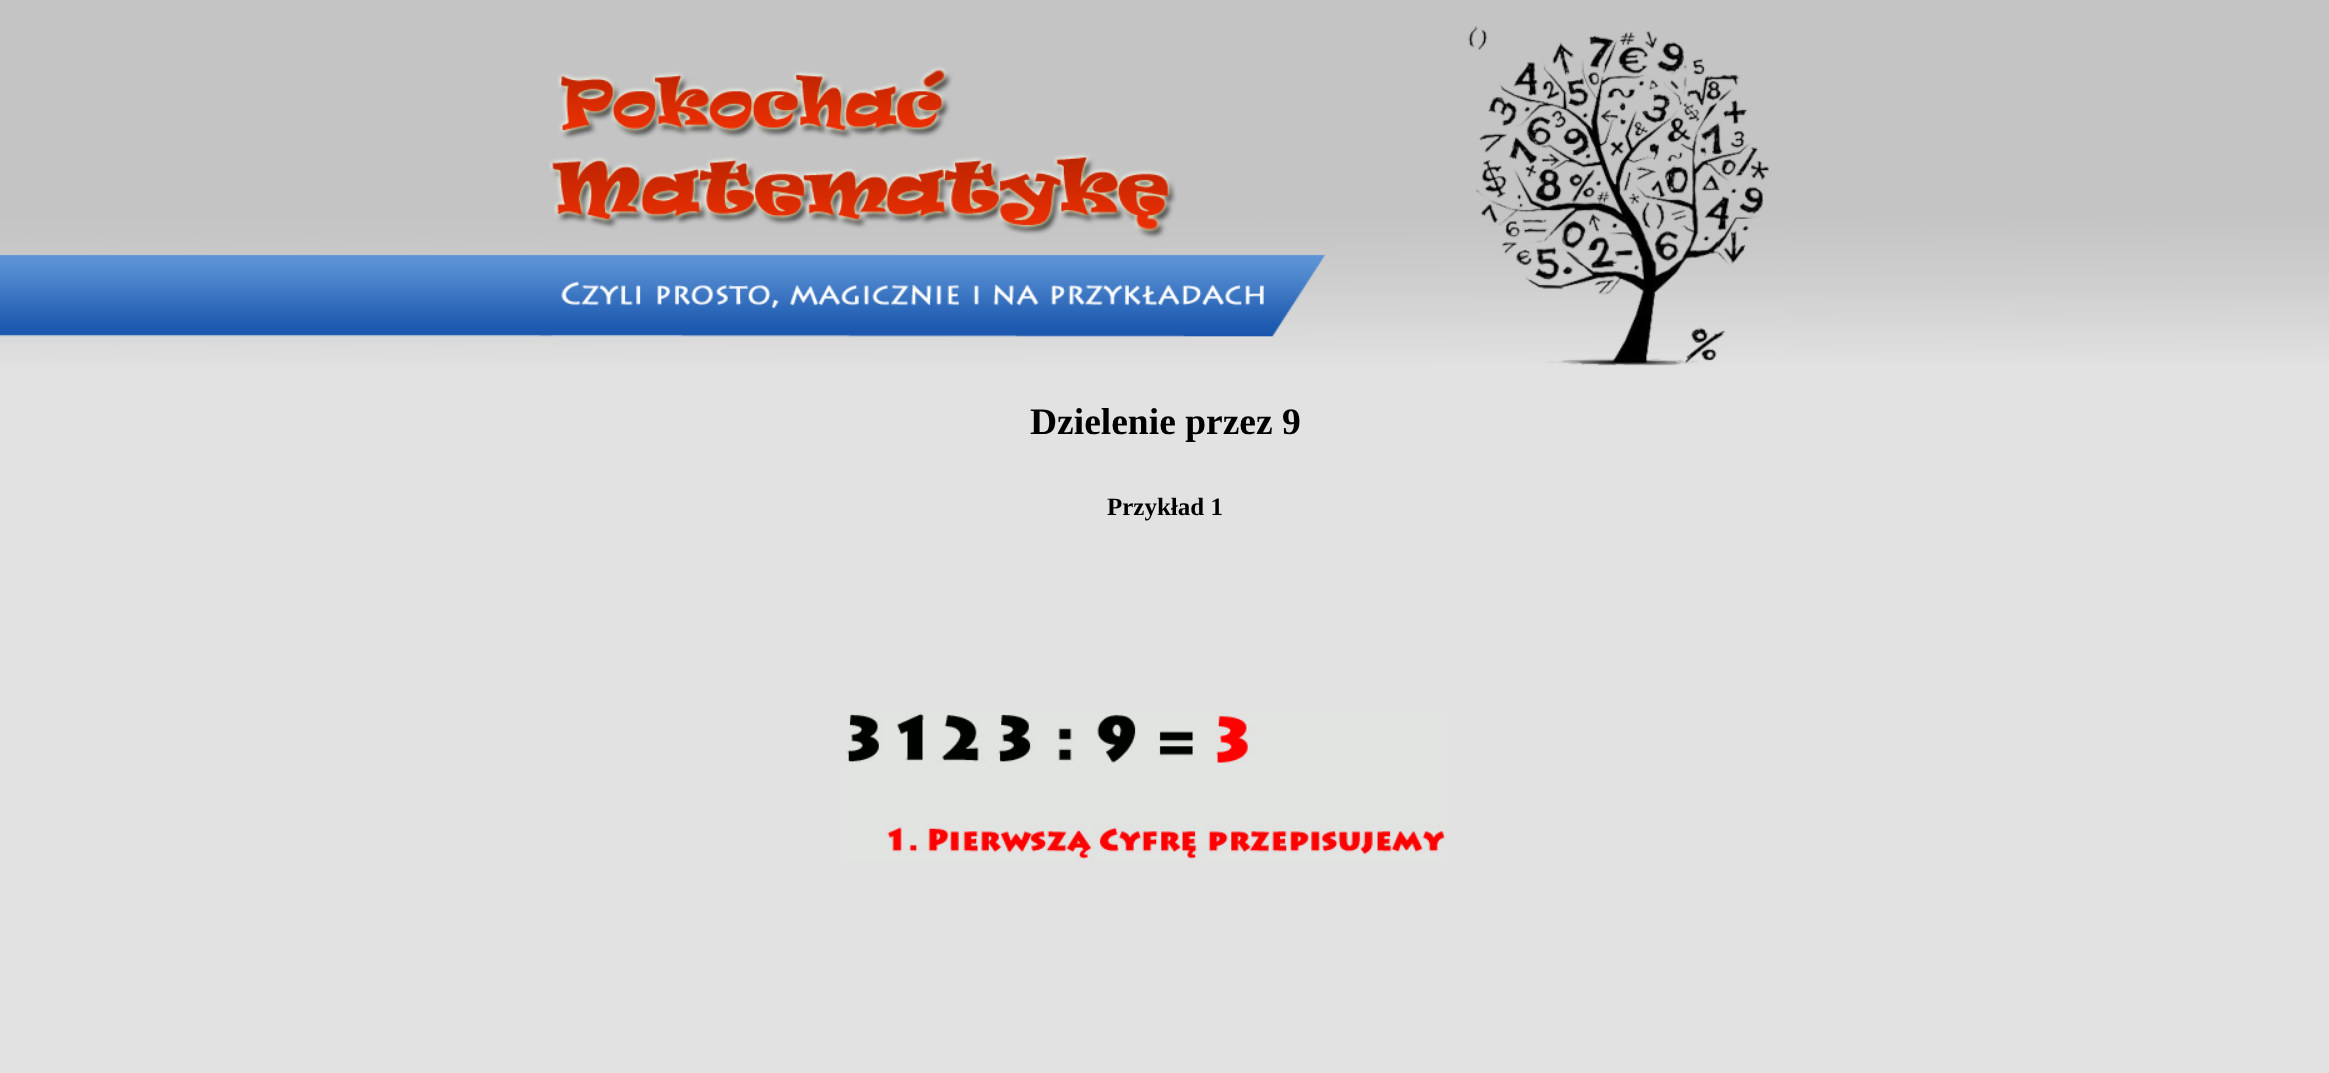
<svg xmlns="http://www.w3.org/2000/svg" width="2329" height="1073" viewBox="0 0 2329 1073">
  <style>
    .t1 { font: bold 37.5px Liberation Serif; fill: #000; }
    .t2 { font: bold 25px Liberation Serif; fill: #000; }
  </style>
  <rect width="100%" height="100%" fill="#e2e2e2"/>
  <image x="0" y="0" width="2329" height="366" href="images/1.png"/>
  <text x="1030" y="434" class="t1">Dzielenie przez 9</text>
  <text x="1107" y="515" class="t2">Przykład 1</text>
  <image x="847" y="713" width="599" height="149" href="images/2.png"/>
</svg>
